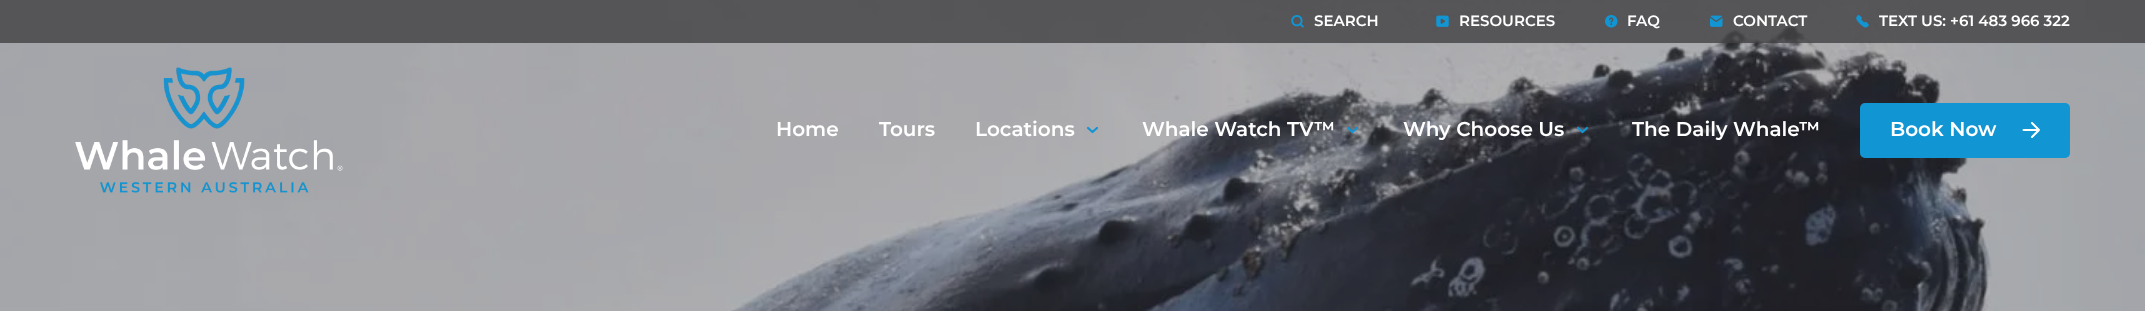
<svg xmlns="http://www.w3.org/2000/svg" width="2145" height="311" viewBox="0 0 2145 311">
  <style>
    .t1 { font: 600 15px Montserrat; fill: #fff; }
    .t2 { font: 600 20px Montserrat; fill: #fff; }
  </style>
  <rect width="100%" height="100%" fill="#414042"/>
  <image x="0" y="0" width="2145" height="311" href="images/1.png"/>
  <rect x="0" y="0" width="2145" height="43" fill="#414042cc"/>
  <image x="1291" y="15" width="13" height="13" href="images/2.png"/>
  <text x="1314" y="26" class="t1">SEARCH</text>
  <image x="1436" y="15" width="13" height="12" href="images/3.png"/>
  <text x="1459" y="26" class="t1">RESOURCES</text>
  <image x="1605" y="15" width="13" height="13" href="images/4.png"/>
  <text x="1627" y="26" class="t1">FAQ</text>
  <image x="1710" y="15" width="13" height="12" href="images/5.png"/>
  <text x="1733" y="26" class="t1">CONTACT</text>
  <image x="1856" y="15" width="13" height="13" href="images/6.png"/>
  <text x="1879" y="26" class="t1">TEXT US: +61 483 966 322</text>
  <image x="75" y="67" width="268" height="126" href="images/7.png"/>
  <text x="776" y="136" class="t2">Home</text>
  <text x="879" y="136" class="t2">Tours</text>
  <text x="975" y="136" class="t2">Locations</text>
  <path d="M1088 128L1092.5 132L1097 128" fill="none" stroke="#1295d3" stroke-width="2.2" stroke-linecap="round" stroke-linejoin="round"/>
  <text x="1142" y="136" class="t2">Whale Watch TV™</text>
  <path d="M1348 128L1352.5 132L1357 128" fill="none" stroke="#1295d3" stroke-width="2.2" stroke-linecap="round" stroke-linejoin="round"/>
  <text x="1403" y="136" class="t2">Why Choose Us</text>
  <path d="M1578 128L1582.5 132L1587 128" fill="none" stroke="#1295d3" stroke-width="2.2" stroke-linecap="round" stroke-linejoin="round"/>
  <text x="1632" y="136" class="t2">The Daily Whale™</text>
  <rect x="1860" y="103" width="210" height="55" rx="5" fill="#1295d3"/>
  <text x="1890" y="136" class="t2">Book Now</text>
  <path d="M2023.5 130H2039M2032 137L2039 130L2032 123" fill="none" stroke="#fff" stroke-width="2" stroke-linecap="round" stroke-linejoin="round"/>
</svg>
